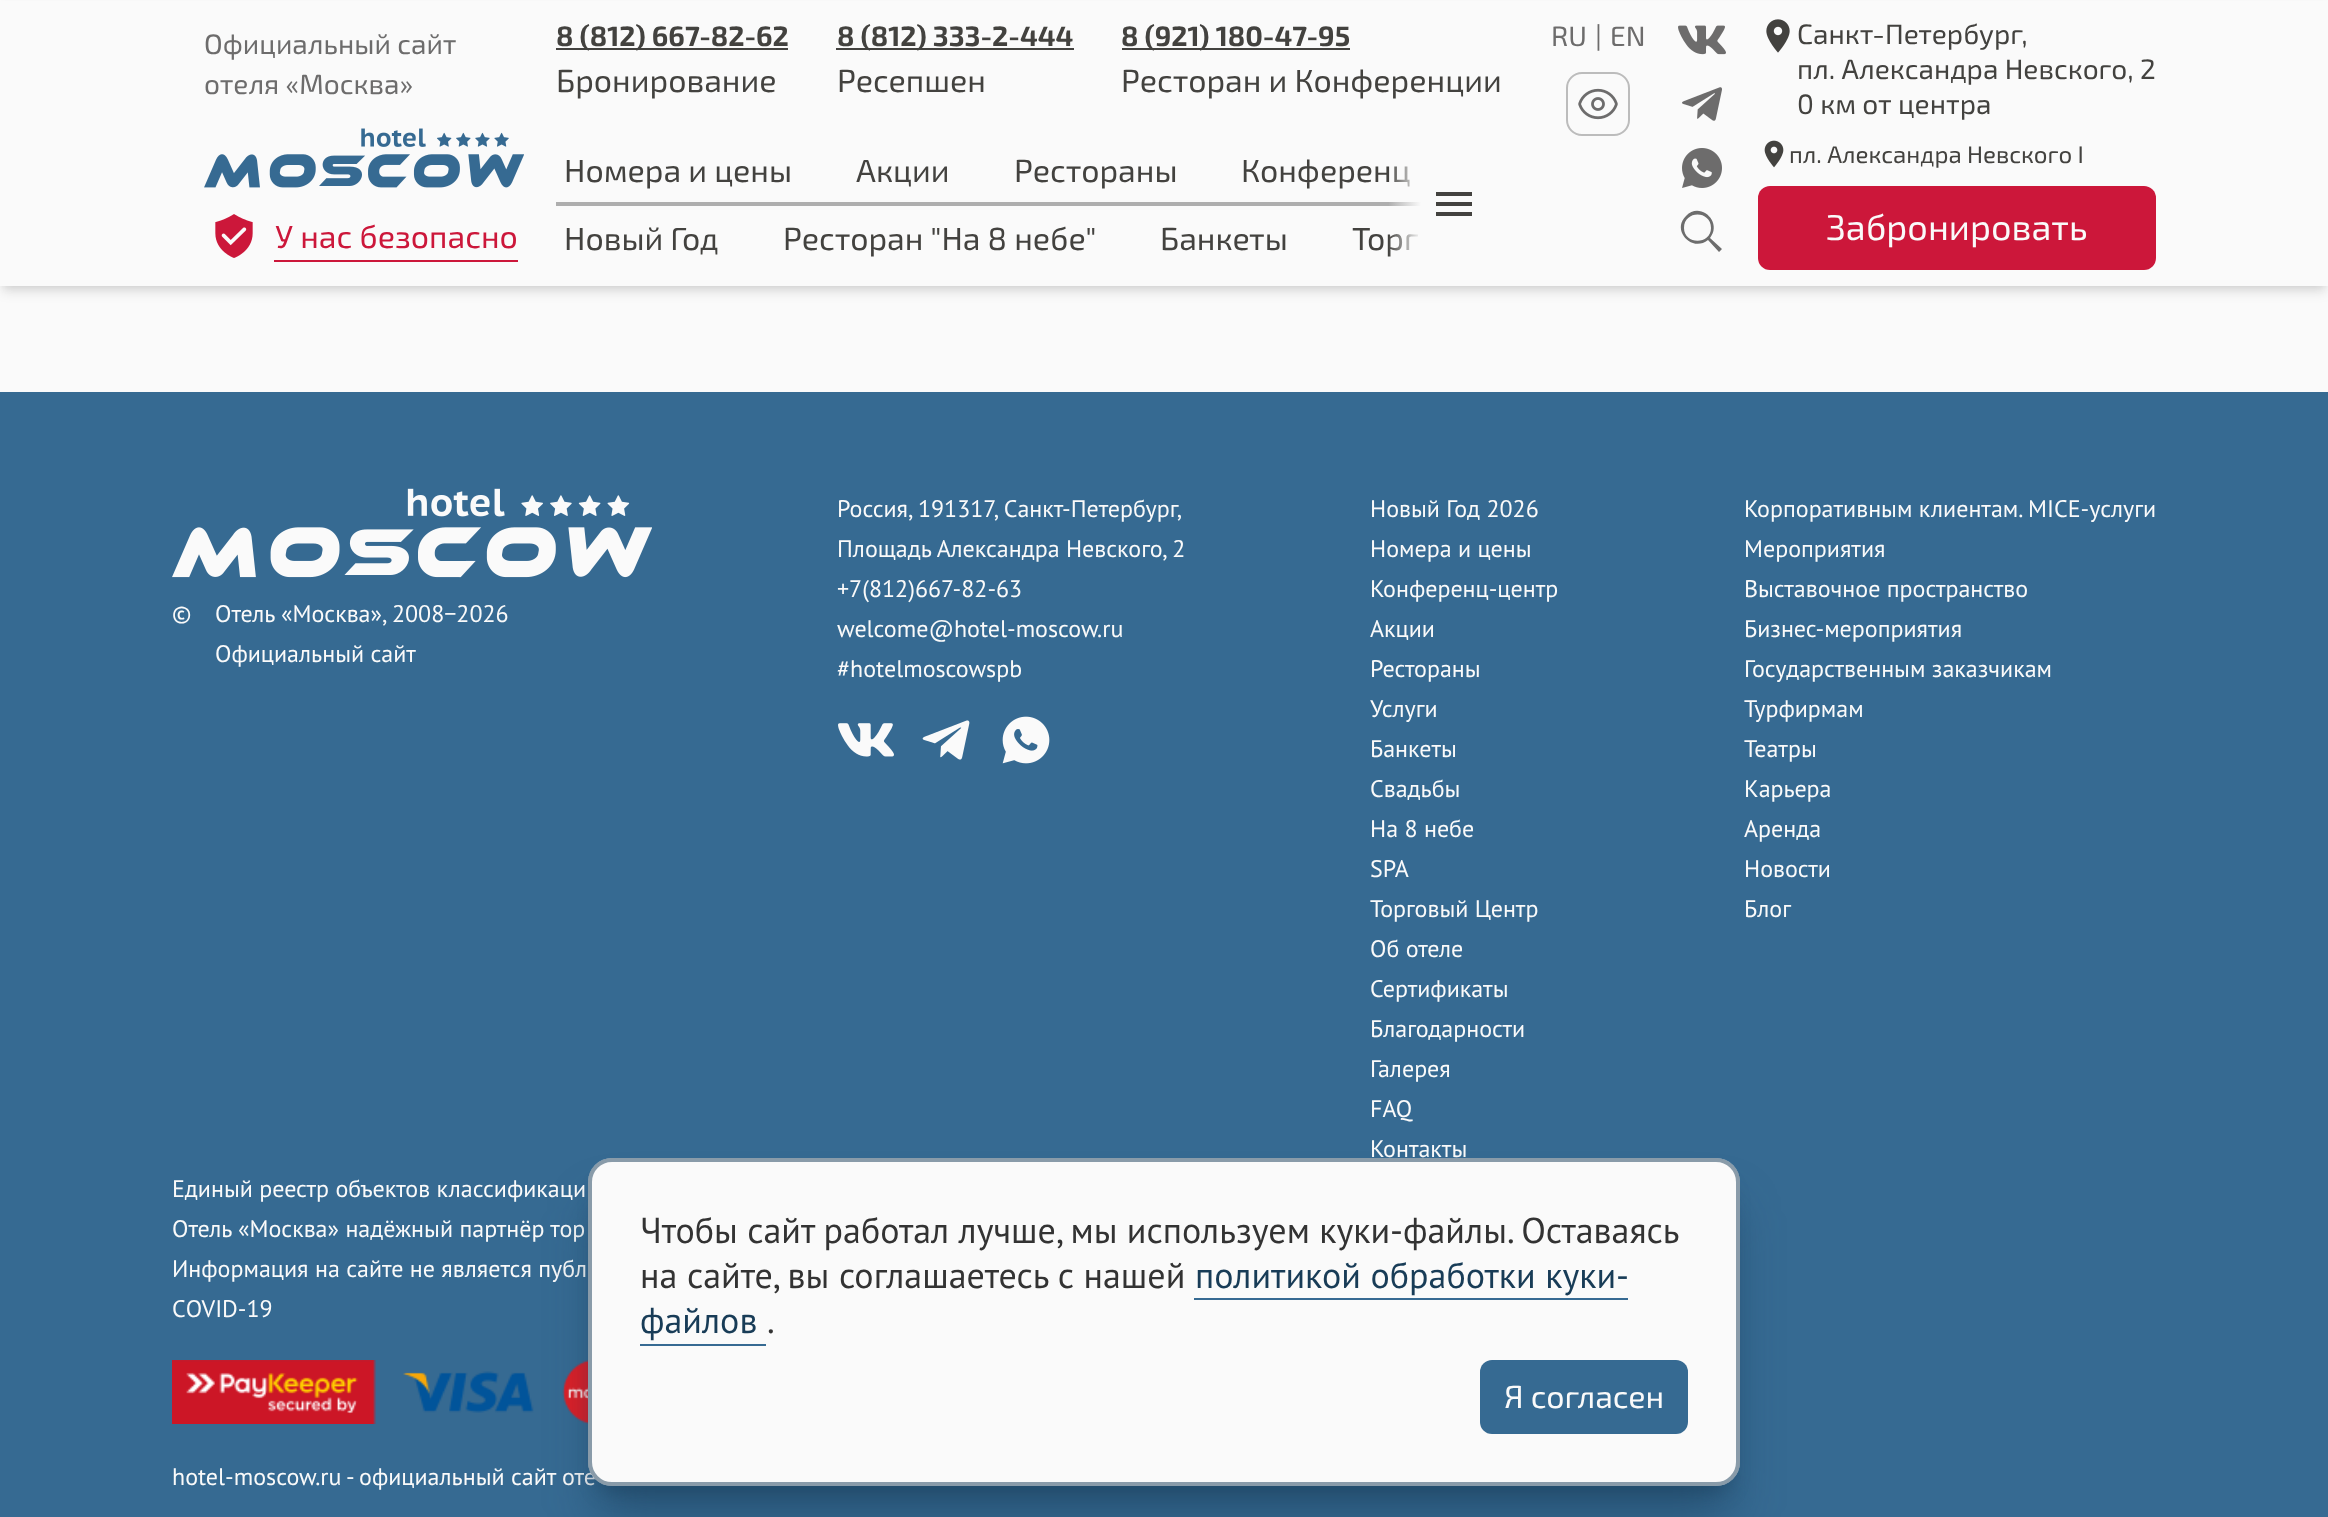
<svg xmlns="http://www.w3.org/2000/svg" width="2328" height="1517" viewBox="0 0 2328 1517">
  <style>
    .t1 { font: 28px 'Exo 2'; fill: #6d6c6c; }
    .t2 { font: 32px 'Exo 2'; fill: #cc173a; }
    .t3 { font: bold 28px 'Exo 2'; fill: #43423f; }
    .t4 { font: 32px 'Exo 2'; fill: #43423f; }
    .t5 { font: 28px 'Exo 2'; fill: #43423f; }
    .t6 { font: 24px 'Exo 2'; fill: #43423f; }
    .t7 { font: 36px 'Exo 2'; fill: #fafafa; }
    .t8 { font: 24px PT Sans; fill: #fafafa; }
    .t9 { font: 36px PT Sans; fill: #333; }
    .t10 { font: 36px PT Sans; fill: #183c57; }
    .t11 { font: 32px 'Exo 2'; fill: #fafafa; }
  </style>
  <defs>
    <linearGradient id="g1" gradientUnits="userSpaceOnUse" x1="1388" y1="204" x2="1520" y2="204"><stop offset="0" stop-color="#fafafa" stop-opacity="0"/><stop offset="0.25" stop-color="#fafafa"/><stop offset="1" stop-color="#fafafa"/></linearGradient>
  </defs>
  <rect width="100%" height="100%" fill="#fafafa"/>
  <rect x="4" y="8" width="2320" height="278" fill="#0000001a" filter="blur(4px)"/>
  <rect x="2" y="10" width="2324" height="282" fill="#0000001a" filter="blur(6px)"/>
  <rect x="0" y="1" width="2328" height="285" fill="#fafafa"/>
  <text x="204" y="54" class="t1">Официальный сайт</text>
  <text x="204" y="94" class="t1">отеля «Москва»</text>
  <image x="204" y="128" width="320" height="60" href="images/1.png"/>
  <image x="215" y="214" width="38" height="44" href="images/2.png"/>
  <rect x="274" y="260" width="244" height="2" fill="#cc173a"/>
  <text x="275" y="248" class="t2">У нас безопасно</text>
  <rect x="556" y="48" width="232" height="2" fill="#43423f"/>
  <text x="556" y="46" class="t3">8 (812) 667-82-62</text>
  <text x="556" y="92" class="t4">Бронирование</text>
  <rect x="836" y="48" width="238" height="2" fill="#43423f"/>
  <text x="837" y="46" class="t3">8 (812) 333-2-444</text>
  <text x="837" y="92" class="t4">Ресепшен</text>
  <rect x="1122" y="48" width="228" height="2" fill="#43423f"/>
  <text x="1121" y="46" class="t3">8 (921) 180-47-95</text>
  <text x="1121" y="92" class="t4">Ресторан и Конференции</text>
  <text x="564" y="182" class="t4">Номера и цены</text>
  <text x="856" y="182" class="t4">Акции</text>
  <text x="1014" y="182" class="t4">Рестораны</text>
  <text x="1241" y="182" class="t4">Конференц</text>
  <rect x="556" y="202" width="865" height="4" fill="#aeaeae"/>
  <text x="564" y="250" class="t4">Новый Год</text>
  <text x="783" y="250" class="t4">Ресторан "На 8 небе"</text>
  <text x="1160" y="250" class="t4">Банкеты</text>
  <text x="1352" y="250" class="t4">Торг</text>
  <rect x="1389" y="166" width="32" height="91" fill="url(#g1)"/>
  <path d="M1436 216V212H1472V216ZM1436 206V202H1472V206ZM1436 196V192H1472V196Z" fill="#43423f"/>
  <text x="1551" y="46" class="t1">RU</text>
  <text x="1595" y="46" class="t1">|</text>
  <text x="1610" y="46" class="t1">EN</text>
  <rect x="1567" y="73" width="62" height="62" rx="15" fill="none" stroke="#bcbcbc" stroke-width="2"/>
  <image x="1578" y="88" width="40" height="32" href="images/3.png"/>
  <image x="1678" y="25" width="48" height="30" href="images/4.png"/>
  <image x="1682" y="87" width="40" height="34" href="images/5.png"/>
  <image x="1682" y="148" width="40" height="40" href="images/6.png"/>
  <path d="M1722 249L1710 238C1723 222 1700 201 1686 216C1671 230 1692 253 1708 240L1719 252ZM1684 228C1684 210 1711 210 1711 228C1711 245 1684 245 1684 228Z" fill="#6d6d6d"/>
  <image x="1766" y="19" width="24" height="34" href="images/7.png"/>
  <text x="1797" y="44" class="t5">Санкт-Петербург,</text>
  <text x="1797" y="79" class="t5">пл. Александра Невского, 2</text>
  <text x="1797" y="114" class="t5">0 км от центра</text>
  <image x="1764" y="140" width="20" height="28" href="images/8.png"/>
  <text x="1789" y="163" class="t6">пл. Александра Невского I</text>
  <rect x="1758" y="186" width="398" height="84" rx="12" fill="#cc173a"/>
  <text x="1826" y="240" class="t7">Забронировать</text>
  <rect x="0" y="392" width="2328" height="1125" fill="#366a92"/>
  <image x="172" y="488" width="480" height="90" href="images/9.png"/>
  <text x="172" y="622" class="t8">©</text>
  <text x="215" y="622" class="t8">Отель «Москва», 2008−2026</text>
  <text x="215" y="662" class="t8">Официальный сайт</text>
  <text x="837" y="517" class="t8">Россия, 191317, Санкт-Петербург,</text>
  <text x="837" y="557" class="t8">Площадь Александра Невского, 2</text>
  <text x="837" y="597" class="t8">+7(812)667-82-63</text>
  <text x="837" y="637" class="t8">welcome@hotel-moscow.ru</text>
  <text x="837" y="677" class="t8">#hotelmoscowspb</text>
  <image x="838" y="723" width="56" height="34" href="images/10.png"/>
  <image x="922" y="720" width="48" height="40" href="images/11.png"/>
  <image x="1002" y="716" width="48" height="48" href="images/12.png"/>
  <text x="1370" y="517" class="t8">Новый Год 2026</text>
  <text x="1370" y="557" class="t8">Номера и цены</text>
  <text x="1370" y="597" class="t8">Конференц-центр</text>
  <text x="1370" y="637" class="t8">Акции</text>
  <text x="1370" y="677" class="t8">Рестораны</text>
  <text x="1370" y="717" class="t8">Услуги</text>
  <text x="1370" y="757" class="t8">Банкеты</text>
  <text x="1370" y="797" class="t8">Свадьбы</text>
  <text x="1370" y="837" class="t8">На 8 небе</text>
  <text x="1370" y="877" class="t8">SPA</text>
  <text x="1370" y="917" class="t8">Торговый Центр</text>
  <text x="1370" y="957" class="t8">Об отеле</text>
  <text x="1370" y="997" class="t8">Сертификаты</text>
  <text x="1370" y="1037" class="t8">Благодарности</text>
  <text x="1370" y="1077" class="t8">Галерея</text>
  <text x="1370" y="1117" class="t8">FAQ</text>
  <text x="1370" y="1157" class="t8">Контакты</text>
  <text x="1744" y="517" class="t8">Корпоративным клиентам. MICE-услуги</text>
  <text x="1744" y="557" class="t8">Мероприятия</text>
  <text x="1744" y="597" class="t8">Выставочное пространство</text>
  <text x="1744" y="637" class="t8">Бизнес-мероприятия</text>
  <text x="1744" y="677" class="t8">Государственным заказчикам</text>
  <text x="1744" y="717" class="t8">Турфирмам</text>
  <text x="1744" y="757" class="t8">Театры</text>
  <text x="1744" y="797" class="t8">Карьера</text>
  <text x="1744" y="837" class="t8">Аренда</text>
  <text x="1744" y="877" class="t8">Новости</text>
  <text x="1744" y="917" class="t8">Блог</text>
  <text x="172" y="1197" class="t8">Единый реестр объектов классификаци</text>
  <text x="172" y="1237" class="t8">Отель «Москва» надёжный партнёр тор</text>
  <text x="172" y="1277" class="t8">Информация на сайте не является публ</text>
  <text x="172" y="1317" class="t8">СOVID-19</text>
  <image x="172" y="1360" width="416" height="64" href="images/13.png"/>
  <text x="172" y="1485" class="t8">hotel-moscow.ru - официальный сайт оте</text>
  <rect x="600" y="1186" width="1128" height="304" rx="12" fill="#183c5780" filter="blur(10px)"/>
  <rect x="598" y="1208" width="1132" height="308" rx="14" fill="#183c5780" filter="blur(25px)"/>
  <rect x="588" y="1158" width="1152" height="328" rx="24" fill="#fafafa"/>
  <rect x="590" y="1160" width="1148" height="324" rx="22" fill="none" stroke="#183c5780" stroke-width="4"/>
  <text x="640" y="1243" word-spacing="-0.25" class="t9">Чтобы сайт работал лучше, мы используем куки-файлы. Оставаясь</text>
  <text x="640" y="1288" class="t9">на сайте, вы соглашаетесь с нашей</text>
  <text x="1195" y="1288" class="t10">политикой обработки куки-</text>
  <rect x="1194" y="1298" width="434" height="2" fill="#366a92"/>
  <text x="640" y="1333" class="t10">файлов</text>
  <rect x="640" y="1344" width="126" height="2" fill="#366a92"/>
  <text x="767" y="1333" class="t9">.</text>
  <rect x="1480" y="1360" width="208" height="74" rx="12" fill="#366a92"/>
  <text x="1504" y="1408" class="t11">Я согласен</text>
</svg>
